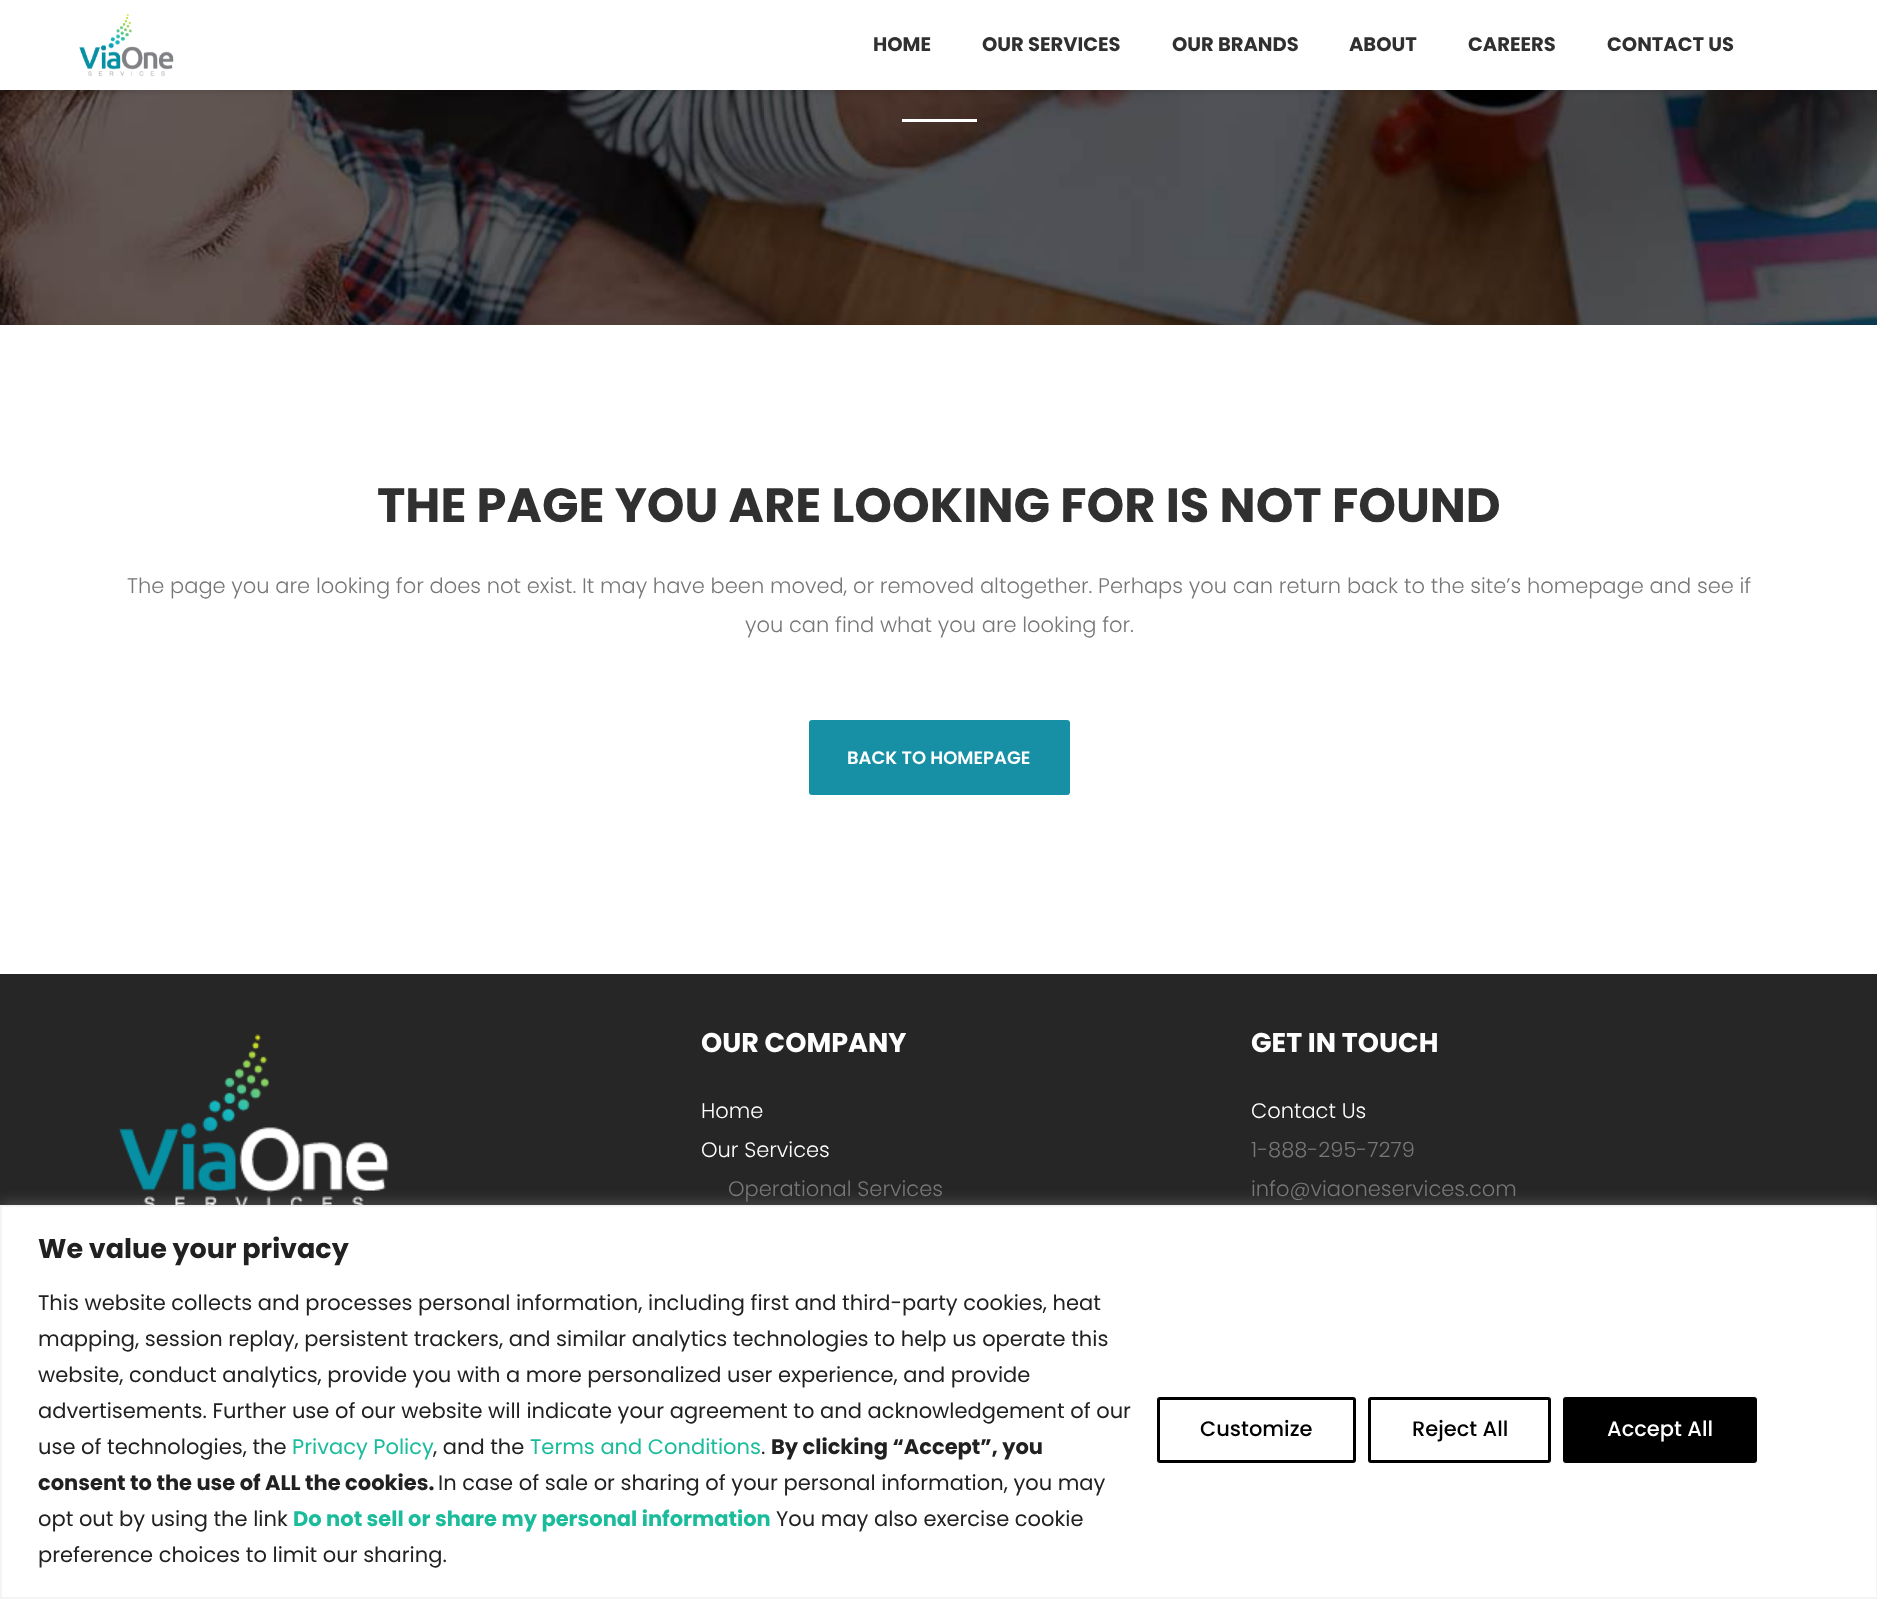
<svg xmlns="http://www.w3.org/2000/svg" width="1877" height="1599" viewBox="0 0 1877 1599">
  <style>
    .t1 { font: bold 19.5px Poppins; fill: #303030; }
    .t2 { font: bold 48px Poppins; fill: #303030; }
    .t3 { font: 300 21px Poppins; fill: #777; }
    .t4 { font: 600 18px Poppins; fill: #fff; }
    .t5 { font: bold 27px Poppins; fill: #fff; }
    .t6 { font: 300 21px Poppins; fill: #fff; }
    .t7 { font: bold 27px Poppins; fill: #212121; }
    .t8 { font: 21px Poppins; fill: #212121; }
    .t9 { font: 21px Poppins; fill: #1abc9c; }
    .t10 { font: bold 21px Poppins; fill: #212121; }
    .t11 { font: bold 21px Poppins; fill: #1abc9c; }
    .t12 { font: 500 21px Poppins; fill: #000; }
    .t13 { font: 500 21px Poppins; fill: #fff; }
  </style>
  <rect width="100%" height="100%" fill="#fff"/>
  <image x="0" y="90" width="1877" height="235" href="images/2.png"/>
  <rect x="0" y="2" width="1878" height="90" fill="#0000001c" filter="blur(2px)"/>
  <rect x="0" y="0" width="1877" height="90" fill="#fff"/>
  <image x="79" y="14" width="95" height="63" href="images/1.png"/>
  <text x="873" y="51" class="t1">HOME</text>
  <text x="982" y="51" class="t1">OUR SERVICES</text>
  <text x="1172" y="51" class="t1">OUR BRANDS</text>
  <text x="1349" y="51" class="t1">ABOUT</text>
  <text x="1468" y="51" class="t1">CAREERS</text>
  <text x="1607" y="51" class="t1">CONTACT US</text>
  <rect x="902" y="119" width="75" height="3" fill="#fff"/>
  <text x="377" y="522" class="t2">THE PAGE YOU ARE LOOKING FOR IS NOT FOUND</text>
  <text x="127" y="593" class="t3">The page you are looking for does not exist. It may have been moved, or removed altogether. Perhaps you can return back to the site’s homepage and see if</text>
  <text x="745" y="632" class="t3">you can find what you are looking for.</text>
  <rect x="809" y="720" width="261" height="75" rx="3" fill="#1790a5"/>
  <text x="847" y="764" class="t4">BACK TO HOMEPAGE</text>
  <rect x="0" y="974" width="1877" height="231" fill="#262626"/>
  <image x="118" y="1034" width="271" height="171" href="images/3.png"/>
  <text x="701" y="1052" class="t5">OUR COMPANY</text>
  <text x="701" y="1118" class="t6">Home</text>
  <text x="701" y="1157" class="t6">Our Services</text>
  <text x="728" y="1196" class="t3">Operational Services</text>
  <text x="1251" y="1052" class="t5">GET IN TOUCH</text>
  <text x="1251" y="1118" class="t6">Contact Us</text>
  <text x="1251" y="1157" class="t3">1-888-295-7279</text>
  <text x="1251" y="1196" class="t3">info@viaoneservices.com</text>
  <rect x="0" y="1203" width="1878" height="395" fill="#acabab4d" filter="blur(7.5px)"/>
  <rect x="1" y="1206" width="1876" height="392" fill="#fff" stroke="#f4f4f4" stroke-width="2"/>
  <text x="38" y="1258" class="t7">We value your privacy</text>
  <text x="38" y="1310" class="t8">This website collects and processes personal information, including first and third-party cookies, heat</text>
  <text x="38" y="1346" class="t8">mapping, session replay, persistent trackers, and similar analytics technologies to help us operate this</text>
  <text x="38" y="1382" class="t8">website, conduct analytics, provide you with a more personalized user experience, and provide</text>
  <text x="38" y="1418" class="t8">advertisements. Further use of our website will indicate your agreement to and acknowledgement of our</text>
  <text x="38" y="1454" class="t8">use of technologies, the</text>
  <text x="292" y="1454" class="t9">Privacy Policy</text>
  <text x="433" y="1454" class="t8">, and the</text>
  <text x="530" y="1454" class="t9">Terms and Conditions</text>
  <text x="761" y="1454" class="t8">.</text>
  <text x="771" y="1454" class="t10">By clicking “Accept”, you</text>
  <text x="38" y="1490" class="t10">consent to the use of ALL the cookies.</text>
  <text x="438" y="1490" class="t8">In case of sale or sharing of your personal information, you may</text>
  <text x="38" y="1526" class="t8">opt out by using the link</text>
  <text x="293" y="1526" class="t11">Do not sell or share my personal information</text>
  <text x="776" y="1526" class="t8">You may also exercise cookie</text>
  <text x="38" y="1562" class="t8">preference choices to limit our sharing.</text>
  <rect x="1158.5" y="1398.5" width="196" height="63" rx="1.5" fill="none" stroke="#000" stroke-width="3"/>
  <text x="1200" y="1436" class="t12">Customize</text>
  <rect x="1369.5" y="1398.5" width="180" height="63" rx="1.5" fill="none" stroke="#000" stroke-width="3"/>
  <text x="1412" y="1436" class="t12">Reject All</text>
  <rect x="1564.5" y="1398.5" width="191" height="63" rx="1.5" fill="#000" stroke="#000" stroke-width="3"/>
  <text x="1607" y="1436" class="t13">Accept All</text>
</svg>
